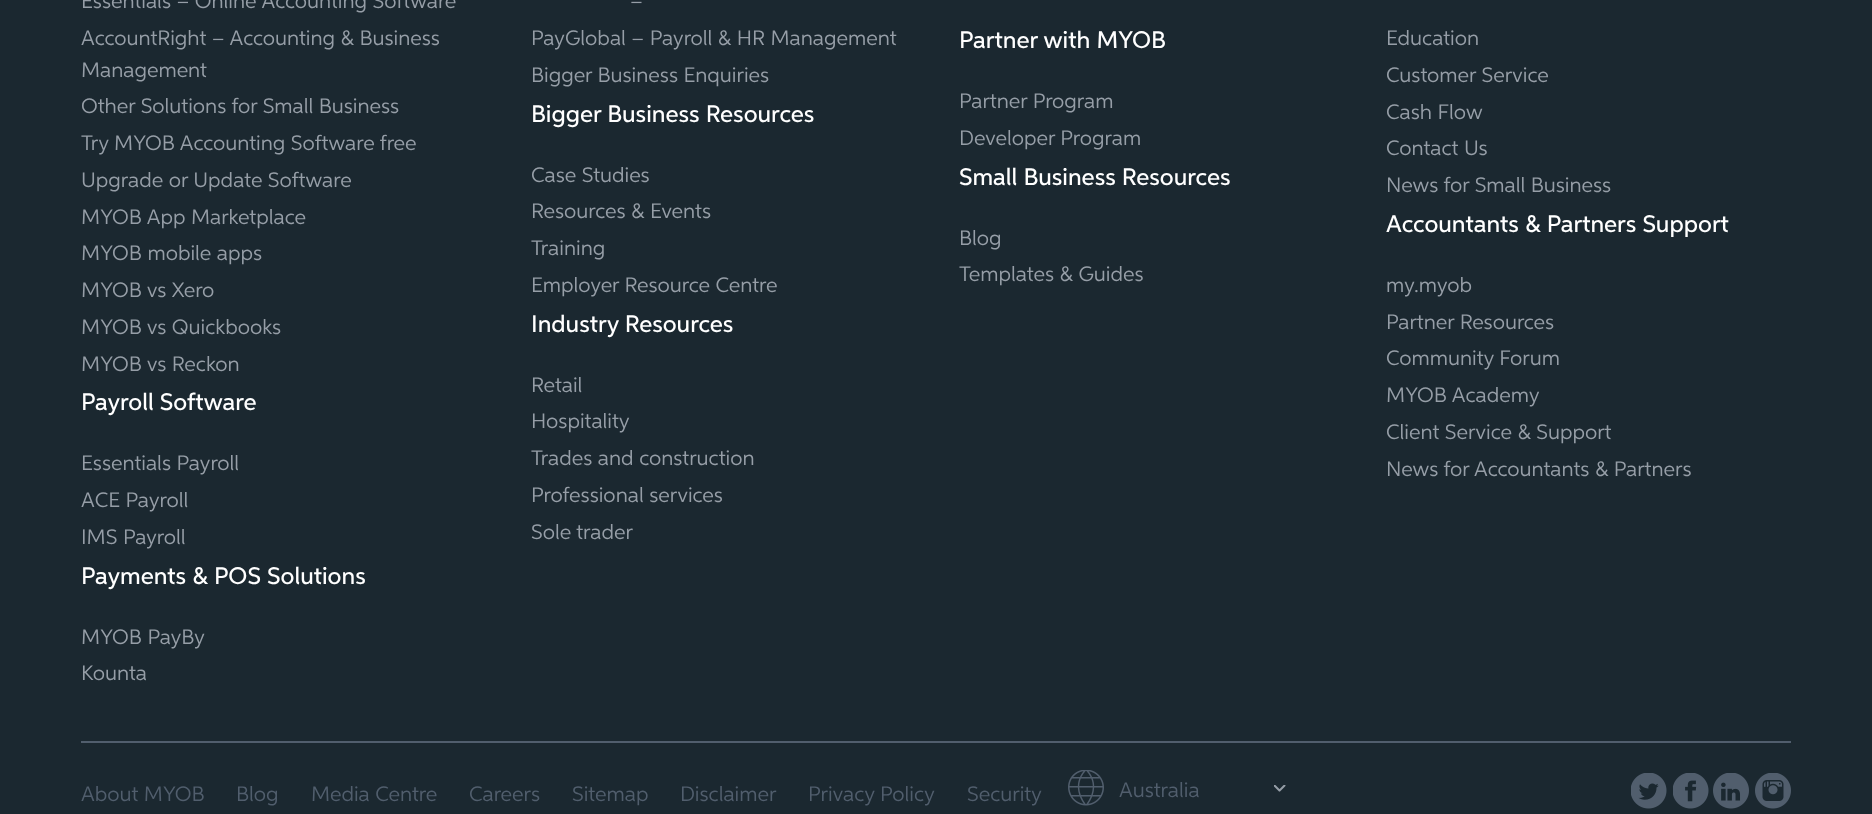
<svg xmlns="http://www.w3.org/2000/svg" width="1872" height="814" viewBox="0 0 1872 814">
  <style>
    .t1 { font: 21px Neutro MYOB; fill: #969ea7; }
    .t2 { font: 500 24px Neutro MYOB; fill: #fff; }
    .t3 { font: 21px Neutro MYOB; fill: #515e6d; }
  </style>
  <rect width="100%" height="100%" fill="#1b2830"/>
  <rect x="81" y="741" width="1710" height="2" fill="#515e6d"/>
  <text x="81" y="8" class="t1">Essentials – Online Accounting Software</text>
  <text x="81" y="45" class="t1">AccountRight – Accounting &amp; Business</text>
  <text x="81" y="77" class="t1">Management</text>
  <text x="81" y="113" class="t1">Other Solutions for Small Business</text>
  <text x="81" y="150" class="t1">Try MYOB Accounting Software free</text>
  <text x="81" y="187" class="t1">Upgrade or Update Software</text>
  <text x="81" y="224" class="t1">MYOB App Marketplace</text>
  <text x="81" y="260" class="t1">MYOB mobile apps</text>
  <text x="81" y="297" class="t1">MYOB vs Xero</text>
  <text x="81" y="334" class="t1">MYOB vs Quickbooks</text>
  <text x="81" y="371" class="t1">MYOB vs Reckon</text>
  <text x="81" y="410" class="t2">Payroll Software</text>
  <text x="81" y="470" class="t1">Essentials Payroll</text>
  <text x="81" y="507" class="t1">ACE Payroll</text>
  <text x="81" y="544" class="t1">IMS Payroll</text>
  <text x="81" y="584" class="t2">Payments &amp; POS Solutions</text>
  <text x="81" y="644" class="t1">MYOB PayBy</text>
  <text x="81" y="680" class="t1">Kounta</text>
  <text x="630" y="8" class="t1">–</text>
  <text x="531" y="45" class="t1">PayGlobal – Payroll &amp; HR Management</text>
  <text x="531" y="82" class="t1">Bigger Business Enquiries</text>
  <text x="531" y="122" class="t2">Bigger Business Resources</text>
  <text x="531" y="182" class="t1">Case Studies</text>
  <text x="531" y="218" class="t1">Resources &amp; Events</text>
  <text x="531" y="255" class="t1">Training</text>
  <text x="531" y="292" class="t1">Employer Resource Centre</text>
  <text x="531" y="332" class="t2">Industry Resources</text>
  <text x="531" y="392" class="t1">Retail</text>
  <text x="531" y="428" class="t1">Hospitality</text>
  <text x="531" y="465" class="t1">Trades and construction</text>
  <text x="531" y="502" class="t1">Professional services</text>
  <text x="531" y="539" class="t1">Sole trader</text>
  <text x="959" y="48" class="t2">Partner with MYOB</text>
  <text x="959" y="108" class="t1">Partner Program</text>
  <text x="959" y="145" class="t1">Developer Program</text>
  <text x="959" y="185" class="t2">Small Business Resources</text>
  <text x="959" y="245" class="t1">Blog</text>
  <text x="959" y="281" class="t1">Templates &amp; Guides</text>
  <text x="1386" y="45" class="t1">Education</text>
  <text x="1386" y="82" class="t1">Customer Service</text>
  <text x="1386" y="119" class="t1">Cash Flow</text>
  <text x="1386" y="155" class="t1">Contact Us</text>
  <text x="1386" y="192" class="t1">News for Small Business</text>
  <text x="1386" y="232" class="t2">Accountants &amp; Partners Support</text>
  <text x="1386" y="292" class="t1">my.myob</text>
  <text x="1386" y="329" class="t1">Partner Resources</text>
  <text x="1386" y="365" class="t1">Community Forum</text>
  <text x="1386" y="402" class="t1">MYOB Academy</text>
  <text x="1386" y="439" class="t1">Client Service &amp; Support</text>
  <text x="1386" y="476" class="t1">News for Accountants &amp; Partners</text>
  <text x="81" y="801" class="t3">About MYOB</text>
  <text x="236" y="801" class="t3">Blog</text>
  <text x="311" y="801" class="t3">Media Centre</text>
  <text x="469" y="801" class="t3">Careers</text>
  <text x="572" y="801" class="t3">Sitemap</text>
  <text x="680" y="801" class="t3">Disclaimer</text>
  <text x="808" y="801" class="t3">Privacy Policy</text>
  <text x="967" y="801" class="t3">Security</text>
  <image x="1068" y="770" width="36" height="36" href="images/1.png"/>
  <text x="1119" y="797" class="t3">Australia</text>
  <image x="1274" y="785" width="12" height="7" href="images/2.png"/>
  <image x="1631" y="773" width="36" height="36" href="images/3.png"/>
  <image x="1673" y="773" width="36" height="36" href="images/4.png"/>
  <image x="1713" y="773" width="36" height="36" href="images/5.png"/>
  <image x="1755" y="773" width="36" height="36" href="images/6.png"/>
</svg>
